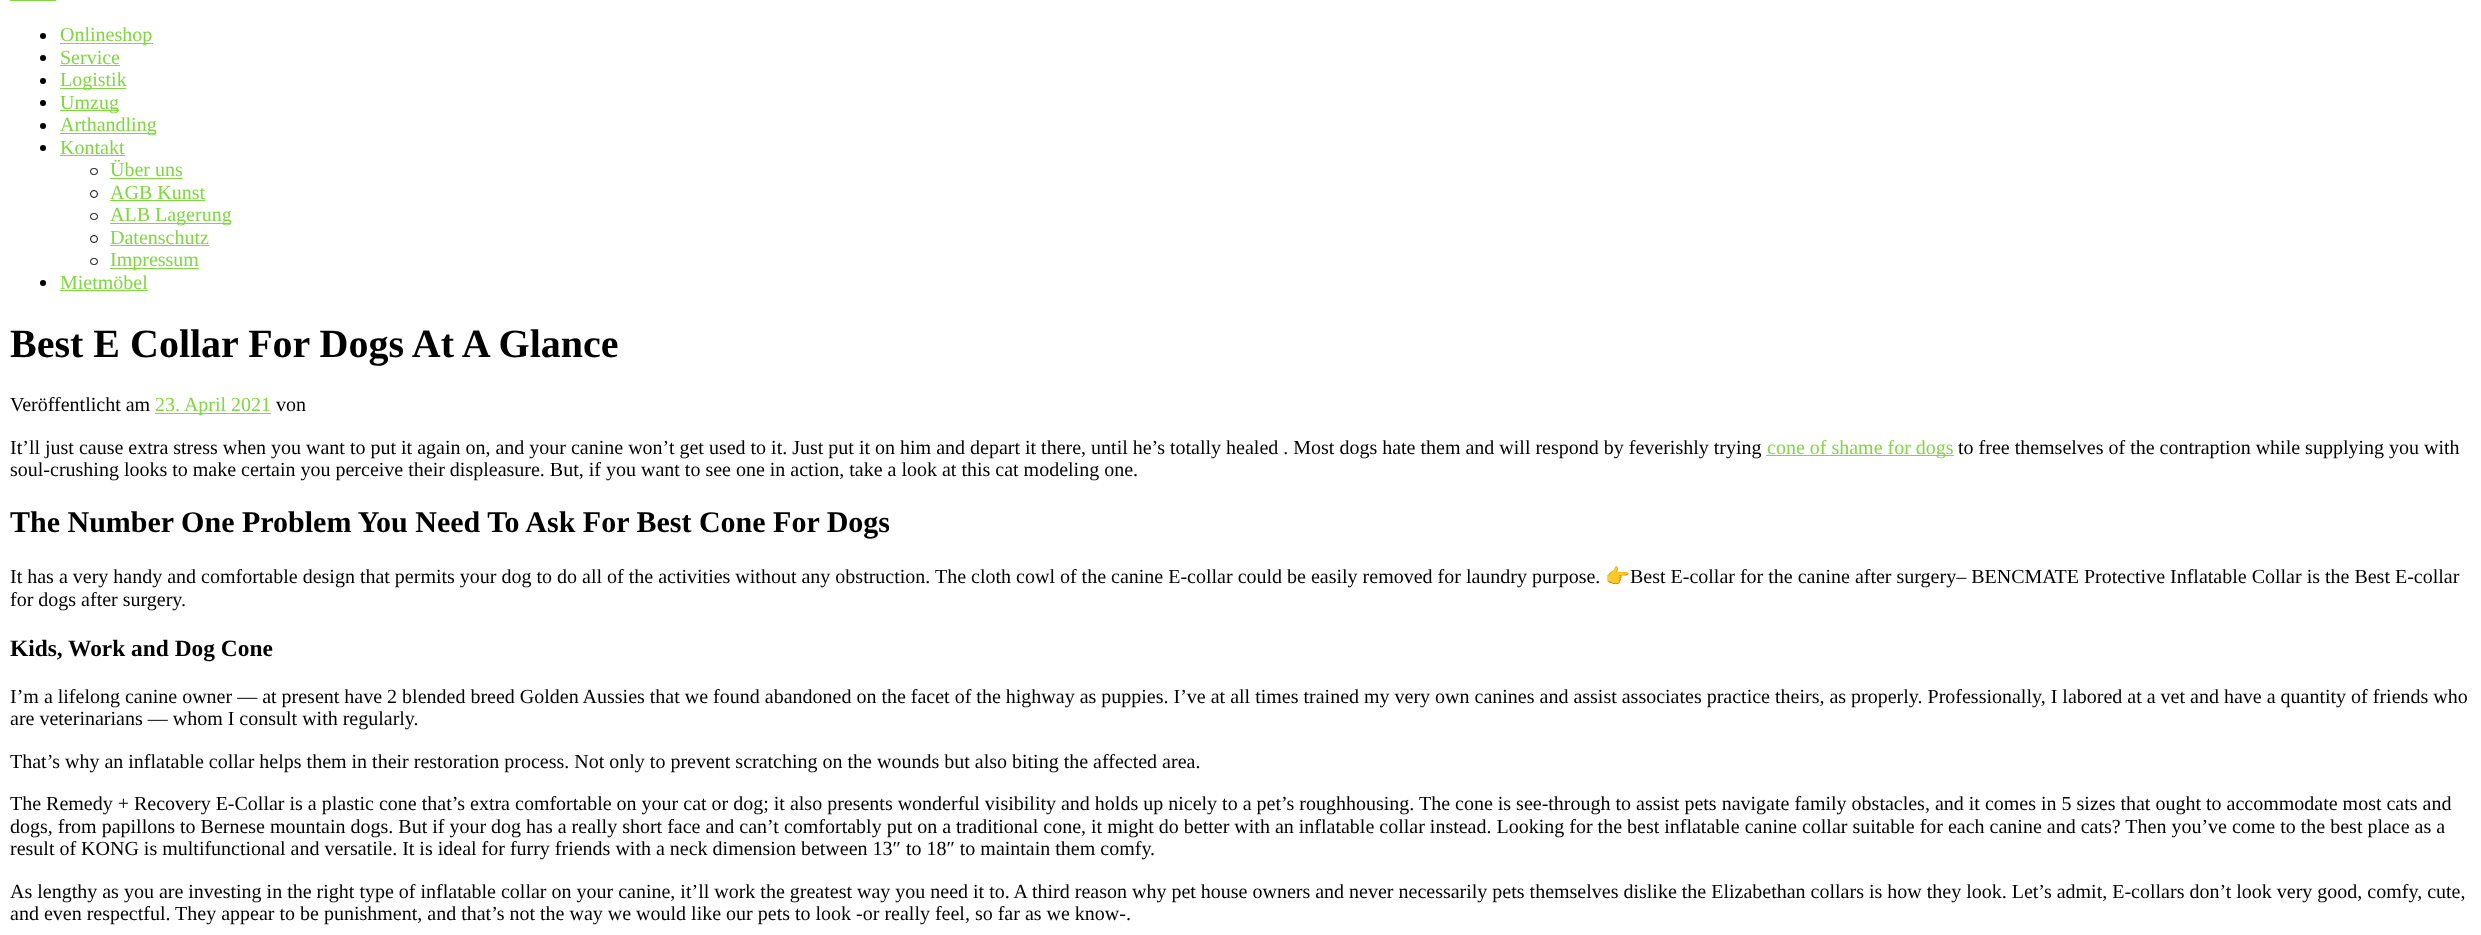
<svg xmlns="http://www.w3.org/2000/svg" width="2481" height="935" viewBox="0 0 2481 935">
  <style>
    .t1 { font: 20px Liberation Serif; fill: #81d742; }
    .t2 { font: bold 40px Liberation Serif; fill: #000; }
    .t3 { font: 20px Liberation Serif; fill: #000; }
    .t4 { font: bold 30px Liberation Serif; fill: #000; }
    .t5 { font: 20px Noto Color Emoji; fill: #000; }
    .t6 { font: bold 23.4px Liberation Serif; fill: #000; }
  </style>
  <rect width="100%" height="100%" fill="#fff"/>
  <rect x="10" y="0" width="46" height="1" fill="#81d742"/>
  <circle cx="43" cy="36" r="3" fill="#000"/>
  <rect x="60" y="43" width="93" height="1" fill="#81d742"/>
  <text x="60" y="41" class="t1">Onlineshop</text>
  <circle cx="43" cy="58" r="3" fill="#000"/>
  <text x="60" y="64" class="t1">Service</text>
  <rect x="60" y="65" width="60" height="1" fill="#81d742"/>
  <circle cx="43" cy="81" r="3" fill="#000"/>
  <rect x="60" y="88" width="66" height="1" fill="#81d742"/>
  <text x="60" y="86" class="t1">Logistik</text>
  <circle cx="43" cy="103" r="3" fill="#000"/>
  <rect x="60" y="110" width="59" height="1" fill="#81d742"/>
  <text x="60" y="109" class="t1">Umzug</text>
  <circle cx="43" cy="126" r="3" fill="#000"/>
  <rect x="60" y="133" width="96" height="1" fill="#81d742"/>
  <text x="60" y="131" class="t1">Arthandling</text>
  <circle cx="43" cy="148" r="3" fill="#000"/>
  <text x="60" y="154" class="t1">Kontakt</text>
  <rect x="60" y="155" width="65" height="1" fill="#81d742"/>
  <rect x="90.5" y="168.5" width="7" height="6" rx="3" fill="none" stroke="#000"/>
  <text x="110" y="176" class="t1">Über uns</text>
  <rect x="110" y="178" width="73" height="1" fill="#81d742"/>
  <circle cx="94" cy="194" r="3.5" fill="none" stroke="#000"/>
  <text x="110" y="199" class="t1">AGB Kunst</text>
  <rect x="110" y="200" width="95" height="1" fill="#81d742"/>
  <rect x="90.5" y="213.5" width="7" height="6" rx="3" fill="none" stroke="#000"/>
  <rect x="110" y="223" width="121" height="1" fill="#81d742"/>
  <text x="110" y="221" class="t1">ALB Lagerung</text>
  <circle cx="94" cy="239" r="3.5" fill="none" stroke="#000"/>
  <text x="110" y="244" class="t1">Datenschutz</text>
  <rect x="110" y="245" width="99" height="1" fill="#81d742"/>
  <rect x="90.5" y="258.5" width="7" height="6" rx="3" fill="none" stroke="#000"/>
  <rect x="110" y="268" width="89" height="1" fill="#81d742"/>
  <text x="110" y="266" class="t1">Impressum</text>
  <circle cx="43" cy="283" r="3" fill="#000"/>
  <text x="60" y="289" class="t1">Mietmöbel</text>
  <rect x="60" y="290" width="88" height="1" fill="#81d742"/>
  <text x="10" y="357" class="t2">Best E Collar For Dogs At A Glance</text>
  <text x="10" y="411" class="t3">Veröffentlicht am</text>
  <rect x="155" y="413" width="116" height="1" fill="#81d742"/>
  <text x="155" y="411" class="t1">23. April 2021</text>
  <text x="276" y="411" class="t3">von</text>
  <text x="10" y="454" class="t3">It’ll just cause extra stress when you want to put it again on, and your canine won’t get used to it. Just put it on him and depart it there, until he’s totally healed . Most dogs hate them and will respond by feverishly trying</text>
  <rect x="1766" y="455" width="188" height="1" fill="#81d742"/>
  <text x="1767" y="454" class="t1">cone of shame for dogs</text>
  <text x="1958" y="454" class="t3">to free themselves of the contraption while supplying you with</text>
  <text x="10" y="476" class="t3">soul-crushing looks to make certain you perceive their displeasure. But, if you want to see one in action, take a look at this cat modeling one.</text>
  <text x="10" y="532" class="t4">The Number One Problem You Need To Ask For Best Cone For Dogs</text>
  <text x="10" y="583" class="t3">It has a very handy and comfortable design that permits your dog to do all of the activities without any obstruction. The cloth cowl of the canine E-collar could be easily removed for laundry purpose.</text>
  <text x="1605" y="583" class="t5">👉</text>
  <text x="1630" y="583" class="t3">Best E-collar for the canine after surgery– BENCMATE Protective Inflatable Collar is the Best E-collar</text>
  <text x="10" y="606" class="t3">for dogs after surgery.</text>
  <text x="10" y="656" class="t6">Kids, Work and Dog Cone</text>
  <text x="10" y="703" class="t3">I’m a lifelong canine owner — at present have 2 blended breed Golden Aussies that we found abandoned on the facet of the highway as puppies. I’ve at all times trained my very own canines and assist associates practice theirs, as properly. Professionally, I labored at a vet and have a quantity of friends who</text>
  <text x="10" y="725" class="t3">are veterinarians — whom I consult with regularly.</text>
  <text x="10" y="768" class="t3">That’s why an inflatable collar helps them in their restoration process. Not only to prevent scratching on the wounds but also biting the affected area.</text>
  <text x="10" y="810" class="t3">The Remedy + Recovery E-Collar is a plastic cone that’s extra comfortable on your cat or dog; it also presents wonderful visibility and holds up nicely to a pet’s roughhousing. The cone is see-through to assist pets navigate family obstacles, and it comes in 5 sizes that ought to accommodate most cats and</text>
  <text x="10" y="833" class="t3">dogs, from papillons to Bernese mountain dogs. But if your dog has a really short face and can’t comfortably put on a traditional cone, it might do better with an inflatable collar instead. Looking for the best inflatable canine collar suitable for each canine and cats? Then you’ve come to the best place as a</text>
  <text x="10" y="855" class="t3">result of KONG is multifunctional and versatile. It is ideal for furry friends with a neck dimension between 13″ to 18″ to maintain them comfy.</text>
  <text x="10" y="898" class="t3">As lengthy as you are investing in the right type of inflatable collar on your canine, it’ll work the greatest way you need it to. A third reason why pet house owners and never necessarily pets themselves dislike the Elizabethan collars is how they look. Let’s admit, E-collars don’t look very good, comfy, cute,</text>
  <text x="10" y="920" class="t3">and even respectful. They appear to be punishment, and that’s not the way we would like our pets to look -or really feel, so far as we know-.</text>
</svg>
